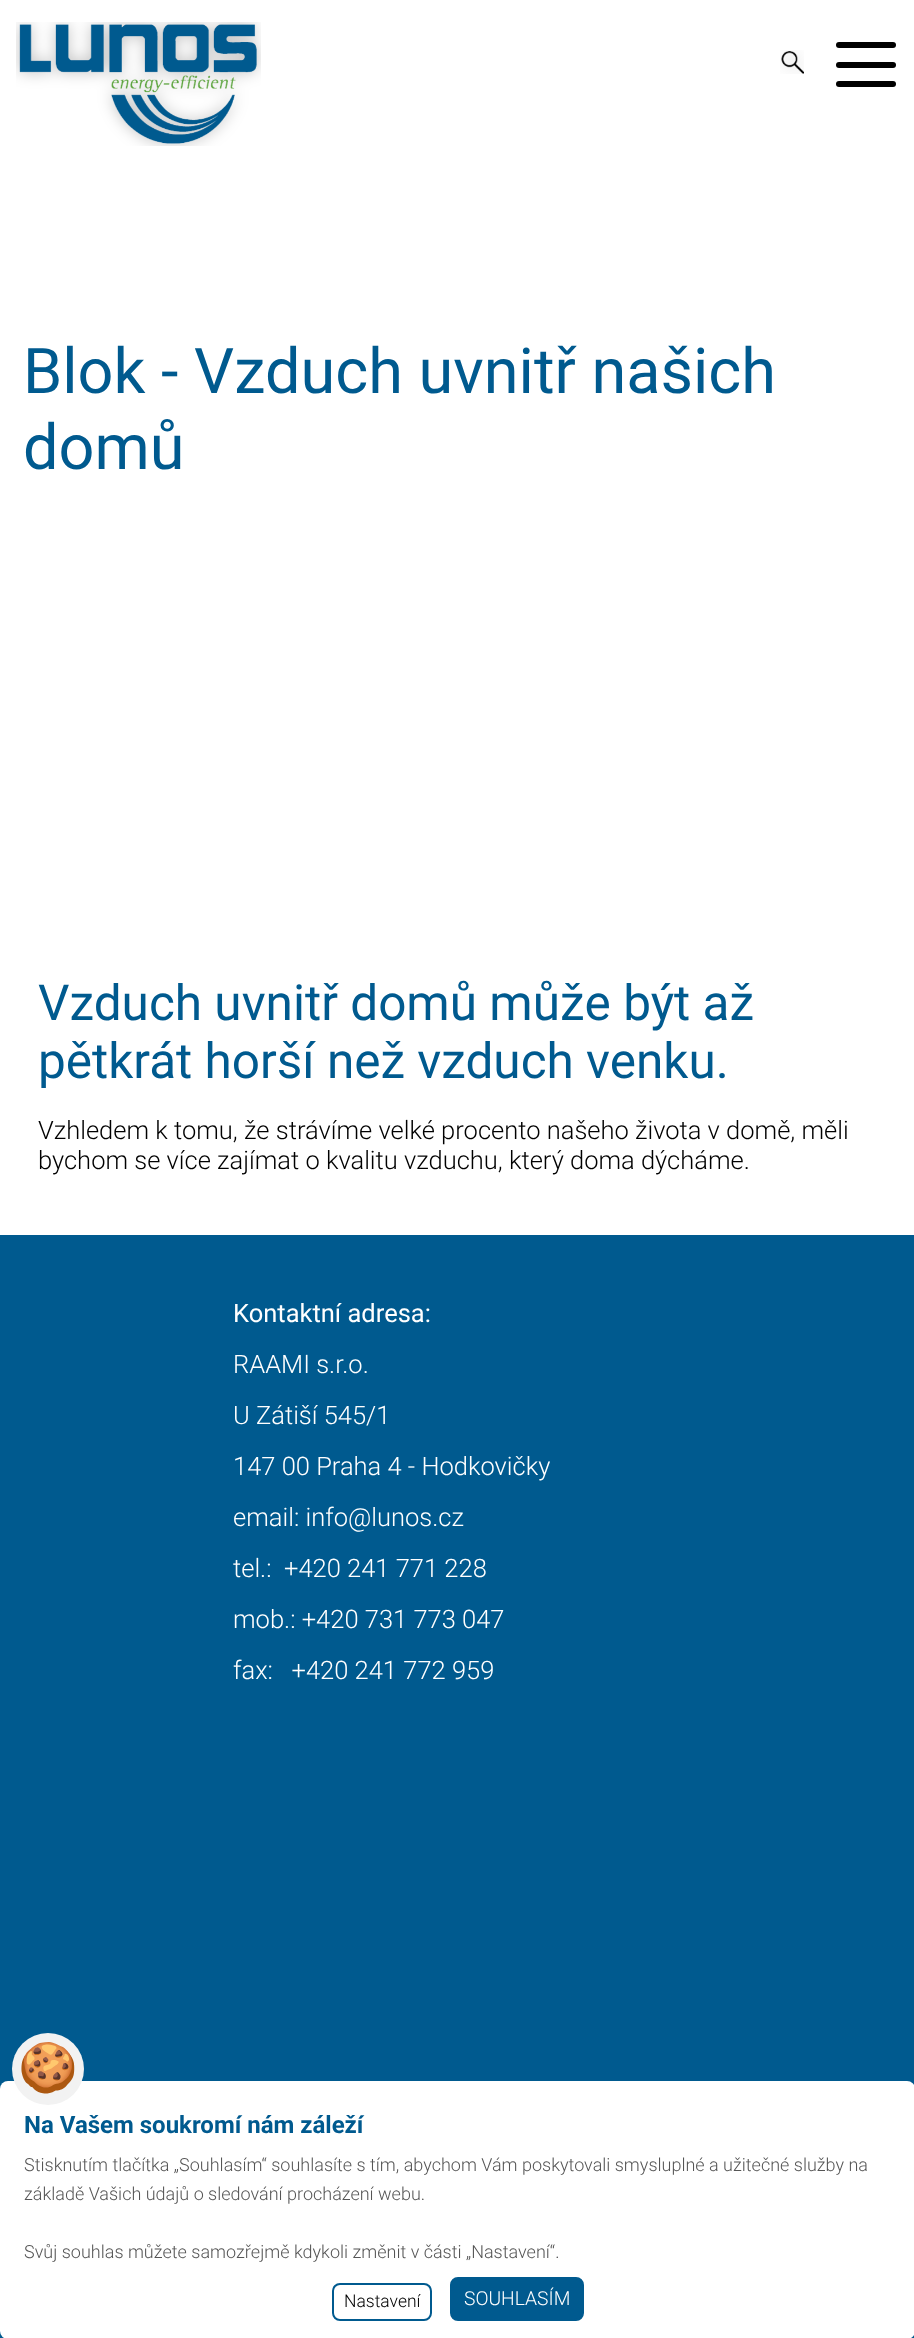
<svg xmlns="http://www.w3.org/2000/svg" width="914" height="2338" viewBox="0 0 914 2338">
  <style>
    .t1 { font: 63px Roboto; fill: #005a8f; }
    .t2 { font: 49.5px Roboto; fill: #005a8f; }
    .t3 { font: 300 25.5px Roboto; fill: #000; }
    .t4 { font: 25.5px Roboto; fill: #fff; }
    .t5 { font: 300 25.5px Roboto; fill: #fff; }
    .t6 { font: 48px Noto Color Emoji; fill: #555; }
    .t7 { font: bold 24px Roboto; fill: #005a8f; }
    .t8 { font: 300 18px Roboto; fill: #555; }
    .t9 { font: 300 17.5px Roboto; fill: #000; }
    .t10 { font: 300 19.25px Roboto; fill: #fff; }
  </style>
  <rect width="100%" height="100%" fill="#fff"/>
  <image x="16" y="22" width="245" height="124" href="images/1.png"/>
  <image x="780" y="50" width="24" height="24" href="images/2.png"/>
  <rect x="836" y="42" width="60" height="6" rx="3" fill="#000"/>
  <rect x="836" y="62" width="60" height="6" rx="3" fill="#000"/>
  <rect x="836" y="81" width="60" height="6" rx="3" fill="#000"/>
  <text x="23" y="393" class="t1">Blok - Vzduch uvnitř našich</text>
  <text x="23" y="469" class="t1">domů</text>
  <text x="38" y="1020" class="t2">Vzduch uvnitř domů může být až</text>
  <text x="38" y="1078" class="t2">pětkrát horší než vzduch venku.</text>
  <text x="38" y="1139" class="t3">Vzhledem k tomu, že strávíme velké procento našeho života v domě, měli</text>
  <text x="38" y="1169" class="t3">bychom se více zajímat o kvalitu vzduchu, který doma dýcháme.</text>
  <rect x="0" y="1235" width="914" height="1103" fill="#005a8f"/>
  <text x="233" y="1322" class="t4">Kontaktní adresa:</text>
  <text x="233" y="1373" class="t5">RAAMI s.r.o.</text>
  <text x="233" y="1424" class="t5">U Zátiší 545/1</text>
  <text x="233" y="1475" class="t5">147 00 Praha 4 - Hodkovičky</text>
  <text x="233" y="1526" class="t5">email: info@lunos.cz</text>
  <text x="233" y="1577" class="t5" xml:space="preserve">tel.:  +420 241 771 228</text>
  <text x="233" y="1628" class="t5">mob.: +420 731 773 047</text>
  <text x="233" y="1679" class="t5" xml:space="preserve">fax:   +420 241 772 959</text>
  <rect x="0" y="2081" width="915" height="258" rx="8" fill="#fff"/>
  <circle cx="48" cy="2069" r="36" fill="#f2f2f2"/>
  <text x="18" y="2084" class="t6">🍪</text>
  <text x="24" y="2133" class="t7">Na Vašem soukromí nám záleží</text>
  <text x="24" y="2171" class="t8">Stisknutím tlačítka „Souhlasím“ souhlasíte s tím, abychom Vám poskytovali smysluplné a užitečné služby na</text>
  <text x="24" y="2200" class="t8">základě Vašich údajů o sledování procházení webu.</text>
  <text x="24" y="2258" class="t8">Svůj souhlas můžete samozřejmě kdykoli změnit v části „Nastavení“.</text>
  <rect x="333" y="2284" width="98" height="36" rx="7" fill="none" stroke="#005a8f" stroke-width="2"/>
  <text x="344" y="2307" class="t9">Nastavení</text>
  <rect x="451" y="2278" width="132" height="42" rx="7" fill="#005a8f" stroke="#005a8f" stroke-width="2"/>
  <text x="464" y="2305" class="t10">SOUHLASÍM</text>
</svg>
